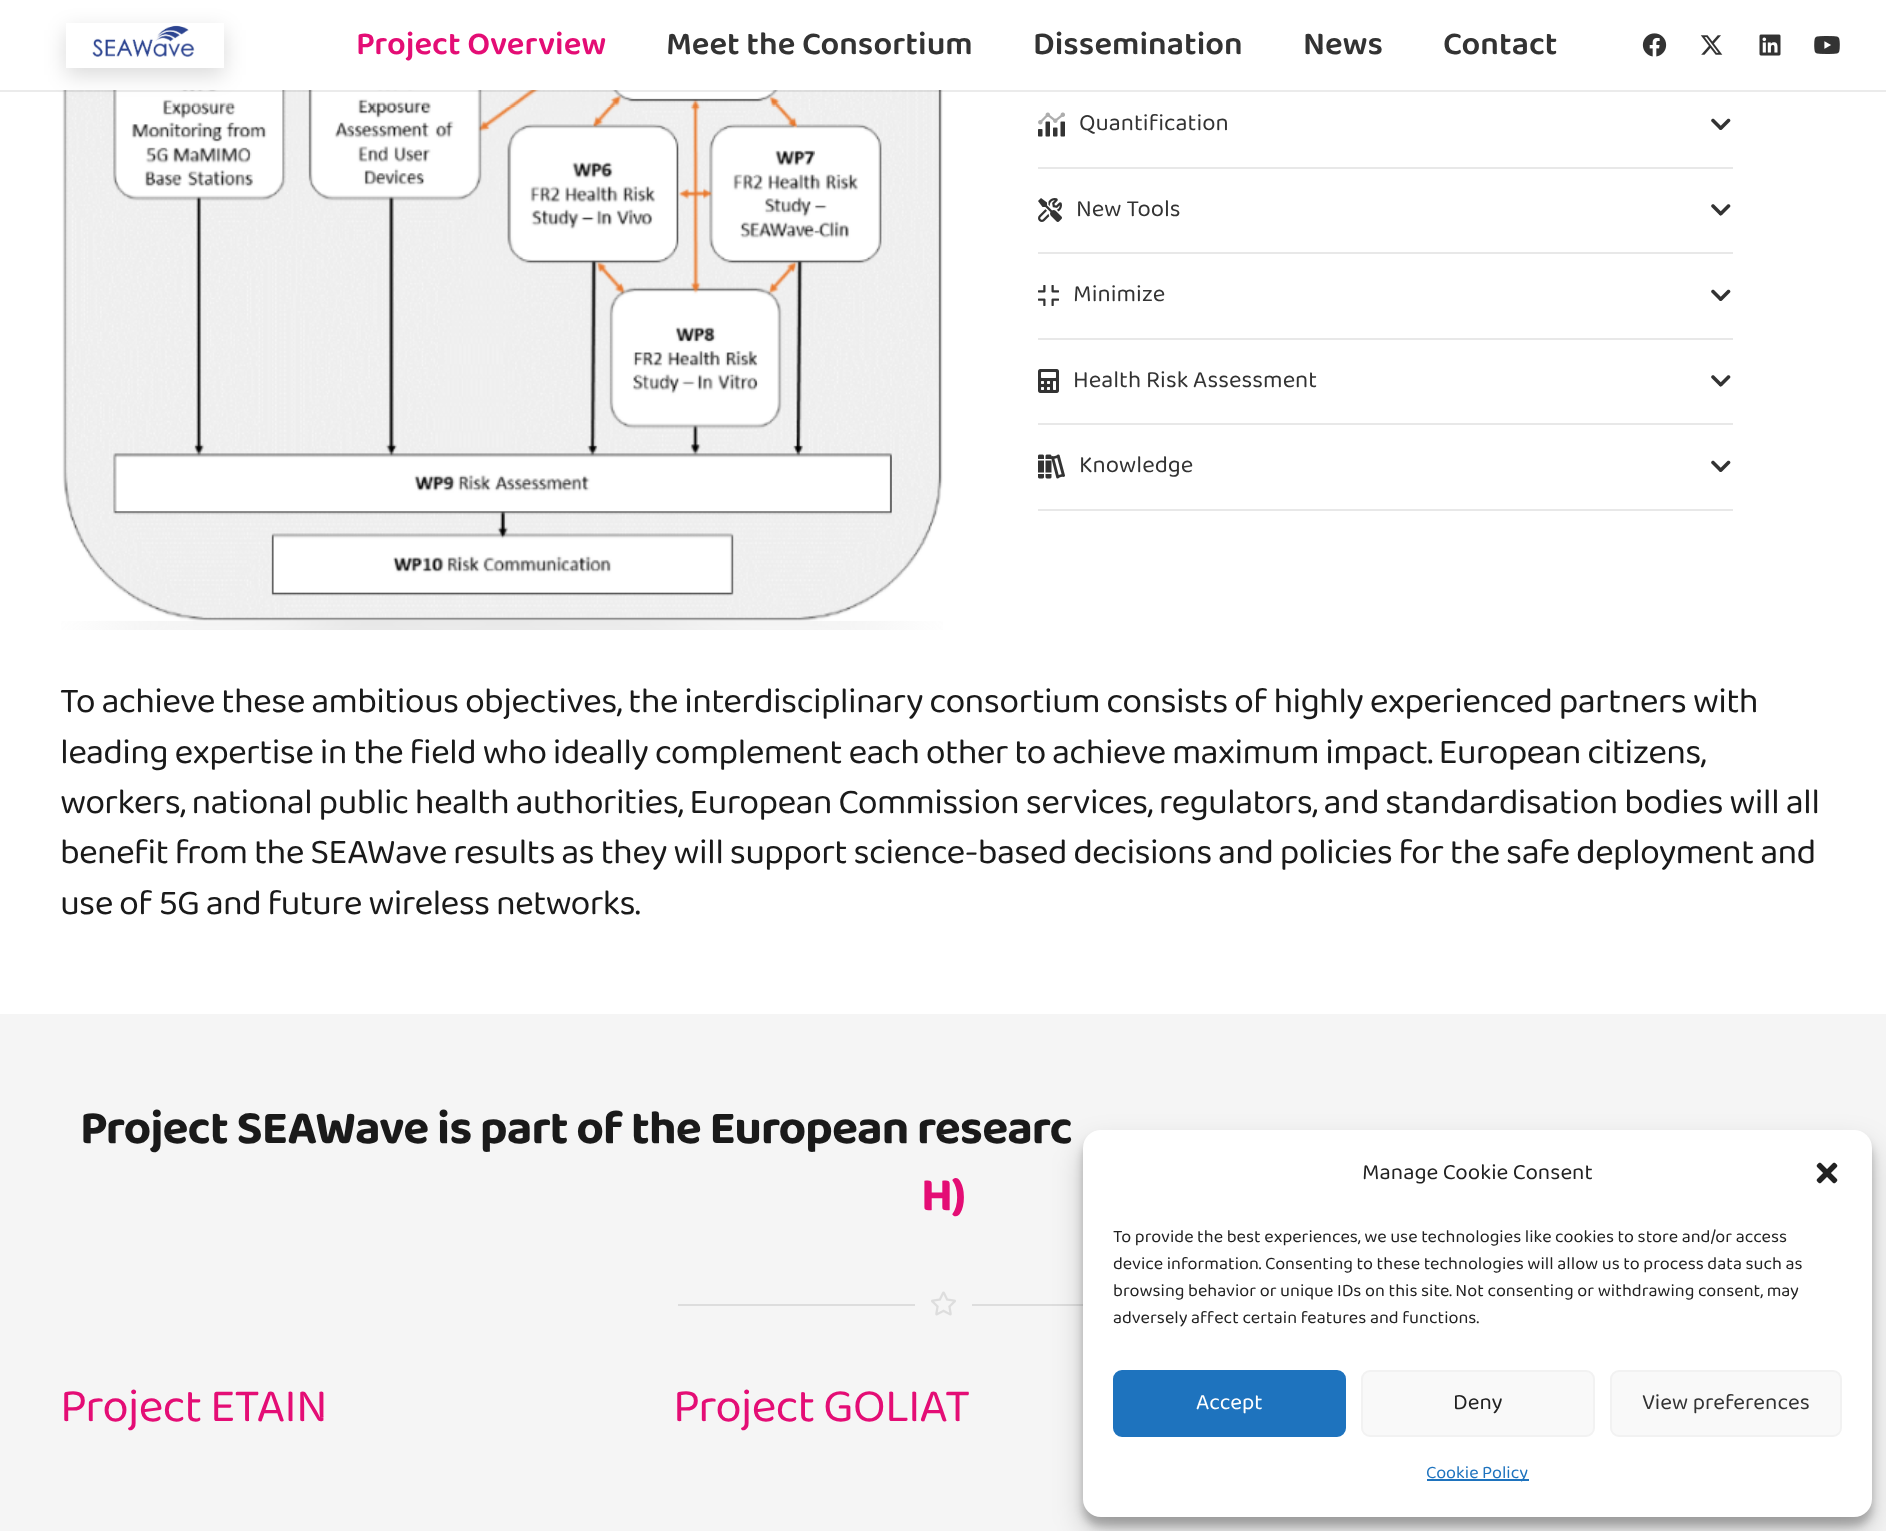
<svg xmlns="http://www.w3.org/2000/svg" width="1886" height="1531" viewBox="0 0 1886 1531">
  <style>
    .t1 { font: 600 33px 'Baloo 2'; fill: #e40d75; }
    .t2 { font: 600 33px 'Baloo 2'; fill: #333; }
    .t3 { font: 24px 'Baloo 2'; fill: #333; }
    .t4 { font: 36px 'Baloo 2'; letter-spacing: -0.72px; fill: #1a1a1a; }
    .t5 { font: bold 48px 'Baloo 2'; letter-spacing: -0.95px; fill: #1a1a1a; }
    .t6 { font: bold 48px 'Baloo 2'; letter-spacing: -0.95px; fill: #e40d75; }
    .t7 { font: 48px 'Baloo 2'; letter-spacing: -0.95px; fill: #e40d75; }
    .t8 { font: 22.5px 'Baloo 2'; fill: #222; }
    .t9 { font: 18px 'Baloo 2'; fill: #222; }
    .t10 { font: 22.5px 'Baloo 2'; fill: #fff; }
    .t11 { font: 22.5px 'Baloo 2'; fill: #333; }
    .t12 { font: 18px 'Baloo 2'; fill: #1e73be; }
  </style>
  <defs>
    <clipPath id="clip1"><path d="M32 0H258V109H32ZM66 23H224V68H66Z" clip-rule="evenodd"/></clipPath>
  </defs>
  <rect width="100%" height="100%" fill="#fff"/>
  <image x="61" y="620" width="882" height="10" href="images/7.png"/>
  <image x="61" y="90" width="882" height="531" href="images/6.png"/>
  <rect x="0" y="90" width="1886" height="2" fill="#00000014"/>
  <g clip-path="url(#clip1)">
    <rect x="66" y="30" width="158" height="45" fill="#00000026" filter="blur(11px)"/>
  </g>
  <image x="69" y="25" width="155" height="43" href="images/1.png"/>
  <text x="356" y="54" class="t1">Project Overview</text>
  <text x="666" y="54" class="t2">Meet the Consortium</text>
  <text x="1033" y="54" class="t2">Dissemination</text>
  <text x="1303" y="54" class="t2">News</text>
  <text x="1443" y="54" class="t2">Contact</text>
  <image x="1642" y="33" width="25" height="24" href="images/2.png"/>
  <image x="1700" y="35" width="23" height="20" href="images/3.png"/>
  <image x="1759" y="34" width="22" height="22" href="images/4.png"/>
  <image x="1814" y="36" width="26" height="18" href="images/5.png"/>
  <image x="1038" y="121" width="27" height="16" href="images/9.png"/>
  <image x="1038" y="112" width="27" height="13" href="images/8.png"/>
  <text x="1079" y="130" class="t3">Quantification</text>
  <path d="M1711.5 119.5L1712 119C1712.5 118.5 1713.5 118.5 1714 119L1722 127C1722.5 127.5 1722.5 128.5 1722 129L1721.5 129.5C1721 130 1720 130 1719.5 129.5L1711.5 121.5C1711 121 1711 120 1711.5 119.5Z" fill="#333"/>
  <path d="M1729.5 119L1730 119.5C1730.5 120 1730.5 121 1730 121.5L1722 129.5C1721 130 1720.5 130 1719.5 129.5V129C1718.5 128.5 1718.5 127.5 1719.5 127L1727.5 119C1728 118.5 1729 118.5 1729.5 119Z" fill="#333"/>
  <rect x="1038" y="167" width="695" height="2" fill="#e8e8e8"/>
  <image x="1038" y="198" width="24" height="24" href="images/10.png"/>
  <text x="1076" y="216" class="t3">New Tools</text>
  <path d="M1711.5 205L1712 204.5C1712.5 204 1713.5 204 1714 204.5L1722 212.5C1722.5 213 1722.5 214 1722 214.5L1721.5 215C1721 215.5 1720 215.5 1719.5 215L1711.5 207C1711 206.5 1711 205.5 1711.5 205Z" fill="#333"/>
  <path d="M1729.5 204.5L1730 205C1730.5 205.5 1730.5 206.5 1730 207L1722 215C1721 215.5 1720.5 215.5 1719.5 215V214.5C1718.5 214 1718.5 213 1719.5 212.5L1727.5 204.5C1728 204 1729 204 1729.5 204.5Z" fill="#333"/>
  <rect x="1038" y="252" width="695" height="2" fill="#e8e8e8"/>
  <image x="1038" y="285" width="21" height="21" href="images/11.png"/>
  <text x="1073" y="301" class="t3">Minimize</text>
  <path d="M1711.5 290.5L1712 290C1712.5 289.5 1713.5 289.5 1714 290L1722 298C1722.5 298.5 1722.5 299.5 1722 300L1721.5 300.5C1721 301 1720 301 1719.5 300.5L1711.5 292.5C1711 292 1711 291 1711.5 290.5Z" fill="#333"/>
  <path d="M1729.5 290L1730 290.5C1730.5 291 1730.5 292 1730 292.5L1722 300.5C1721 301 1720.5 301 1719.5 300.5V300C1718.5 299.5 1718.5 298.5 1719.5 298L1727.5 290C1728 289.5 1729 289.5 1729.5 290Z" fill="#333"/>
  <rect x="1038" y="338" width="695" height="2" fill="#e8e8e8"/>
  <image x="1038" y="369" width="21" height="24" href="images/12.png"/>
  <text x="1073" y="387" class="t3">Health Risk Assessment</text>
  <path d="M1711.5 376L1712 375.5C1712.5 375 1713.5 375 1714 375.5L1722 383.5C1722.5 384 1722.5 385 1722 385.5L1721.5 386C1721 386.5 1720 386.5 1719.5 386L1711.5 378C1711 377.5 1711 376.5 1711.5 376Z" fill="#333"/>
  <path d="M1729.5 375.5L1730 376C1730.5 376.5 1730.5 377.5 1730 378L1722 386C1721 386.5 1720.5 386.5 1719.5 386V385.5C1718.5 385 1718.5 384 1719.5 383.5L1727.5 375.5C1728 375 1729 375 1729.5 375.5Z" fill="#333"/>
  <rect x="1038" y="423" width="695" height="2" fill="#e8e8e8"/>
  <rect x="1038" y="509" width="695" height="2" fill="#e8e8e8"/>
  <image x="1038" y="454" width="27" height="25" href="images/13.png"/>
  <text x="1079" y="472" class="t3">Knowledge</text>
  <path d="M1711.5 461.5L1712 461C1712.5 460.5 1713.5 460.5 1714 461L1722 469C1722.5 469.5 1722.5 470.5 1722 471L1721.5 471.5C1721 472 1720 472 1719.5 471.5L1711.5 463.5C1711 463 1711 462 1711.5 461.5Z" fill="#333"/>
  <path d="M1729.5 461L1730 461.5C1730.5 462 1730.5 463 1730 463.5L1722 471.5C1721 472 1720.5 472 1719.5 471.5V471C1718.5 470.5 1718.5 469.5 1719.5 469L1727.5 461C1728 460.5 1729 460.5 1729.5 461Z" fill="#333"/>
  <text x="60" y="712" class="t4">To achieve these ambitious objectives, the interdisciplinary consortium consists of highly experienced partners with</text>
  <text x="60" y="763" class="t4">leading expertise in the field who ideally complement each other to achieve maximum impact. European citizens,</text>
  <text x="60" y="813" class="t4">workers, national public health authorities, European Commission services, regulators, and standardisation bodies will all</text>
  <text x="60" y="863" class="t4">benefit from the SEAWave results as they will support science-based decisions and policies for the safe deployment and</text>
  <text x="60" y="914" class="t4">use of 5G and future wireless networks.</text>
  <rect x="0" y="1014" width="1886" height="517" fill="#f5f5f5"/>
  <text x="80" y="1143" class="t5">Project SEAWave is part of the European researc</text>
  <text x="921" y="1210" class="t6">H)</text>
  <rect x="678" y="1304" width="237" height="2" fill="#ddd"/>
  <image x="931" y="1291" width="25" height="25" href="images/14.png"/>
  <rect x="972" y="1304" width="111" height="2" fill="#ddd"/>
  <text x="60" y="1421" class="t7">Project ETAIN</text>
  <text x="673" y="1421" class="t7">Project GOLIAT</text>
  <rect x="1083" y="1139" width="789" height="387" rx="18" fill="#0000003b" filter="blur(4.5px)"/>
  <rect x="1083" y="1145" width="789" height="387" rx="18" fill="#00000030" filter="blur(15px)"/>
  <rect x="1083" y="1130" width="789" height="387" rx="18" fill="#fff"/>
  <text x="1362" y="1179" class="t8">Manage Cookie Consent</text>
  <image x="1816" y="1162" width="22" height="22" href="images/15.png"/>
  <text x="1113" y="1242" class="t9">To provide the best experiences, we use technologies like cookies to store and/or access</text>
  <text x="1113" y="1269" class="t9">device information. Consenting to these technologies will allow us to process data such as</text>
  <text x="1113" y="1296" class="t9">browsing behavior or unique IDs on this site. Not consenting or withdrawing consent, may</text>
  <text x="1113" y="1323" class="t9">adversely affect certain features and functions.</text>
  <rect x="1114" y="1371" width="231" height="65" rx="8" fill="#1e73be" stroke="#1e73be" stroke-width="2"/>
  <text x="1196" y="1409" class="t10">Accept</text>
  <rect x="1362" y="1371" width="232" height="65" rx="8" fill="#f9f9f9" stroke="#f2f2f2" stroke-width="2"/>
  <text x="1453" y="1409" class="t8">Deny</text>
  <rect x="1611" y="1371" width="230" height="65" rx="8" fill="#f9f9f9" stroke="#f2f2f2" stroke-width="2"/>
  <text x="1642" y="1409" class="t11">View preferences</text>
  <rect x="1427" y="1479" width="102" height="2" fill="#1e73be"/>
  <text x="1426" y="1478" class="t12">Cookie Policy</text>
</svg>
